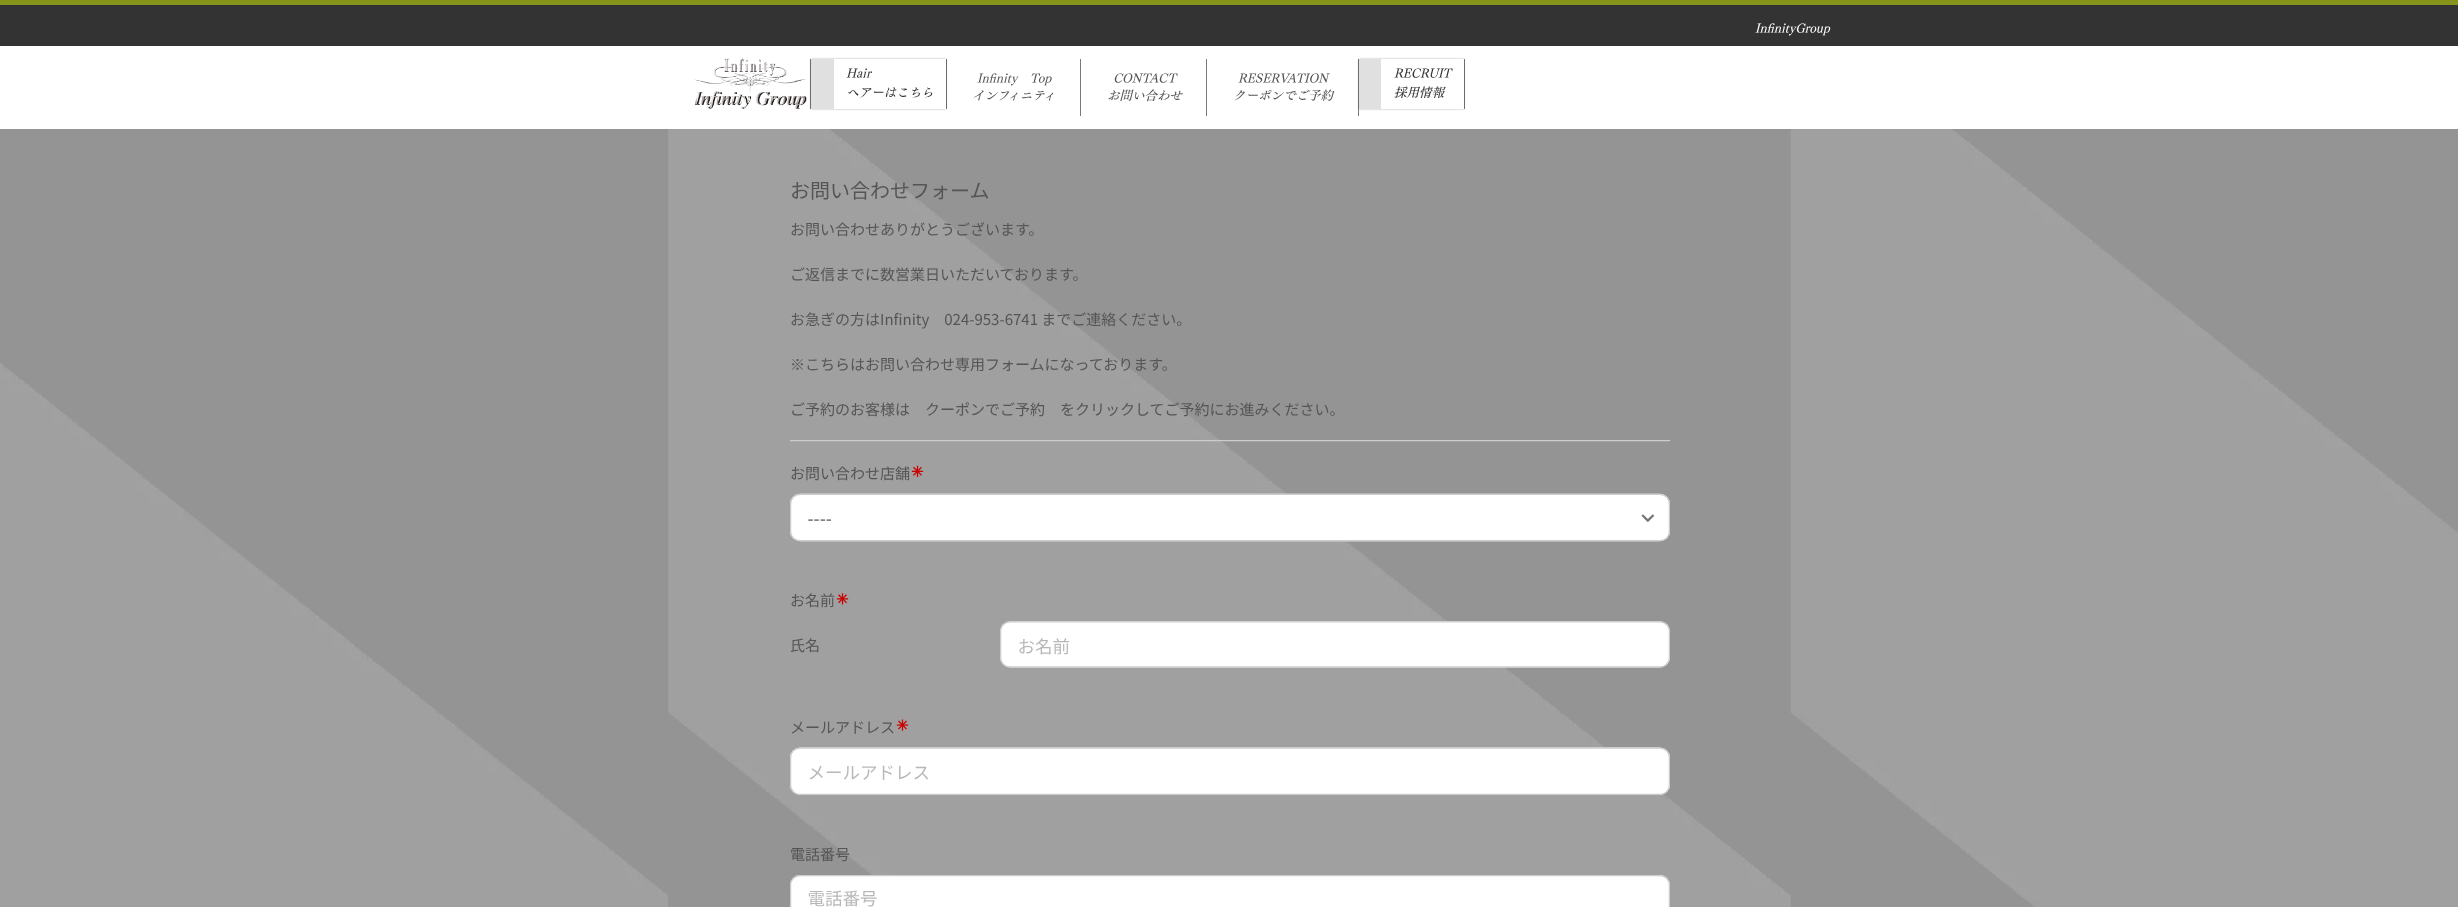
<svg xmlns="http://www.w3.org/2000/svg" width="2458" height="907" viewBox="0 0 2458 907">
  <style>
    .t1 { font: italic 600 12.5px 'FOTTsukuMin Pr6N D'; fill: #fff; }
    .t2 { font: italic 600 12.5px 'FOTTsukuMin Pr6N D'; fill: #333; }
    .t3 { font: italic 600 12.5px 'FOTTsukuMin Pr6N D'; fill: #565656; }
  </style>
  <rect width="100%" height="100%" fill="#333"/>
  <image x="0" y="129" width="2458" height="778" href="images/1.png"/>
  <rect x="0" y="0" width="2458" height="5" fill="#87941b"/>
  <text x="1755" y="33" class="t1">InfinityGroup</text>
  <rect x="0" y="46" width="2458" height="83" fill="#fff"/>
  <image x="694" y="58" width="113" height="51" href="images/2.png"/>
  <rect x="946" y="59" width="1" height="50" fill="#777b80"/>
  <rect x="810" y="59" width="1" height="50" fill="#777b80"/>
  <rect x="811" y="59" width="135" height="50" fill="#0000004d" filter="blur(1px)"/>
  <rect x="834" y="59" width="112" height="50" fill="#fff"/>
  <rect x="811" y="59" width="23" height="50" fill="#e0e0e0"/>
  <text x="846" y="78" class="t2">Hair</text>
  <text x="846" y="97" class="t2">ヘアーはこちら</text>
  <rect x="1080" y="59" width="1" height="57" fill="#777b80"/>
  <text x="977" y="83" class="t3">Infinity　Top</text>
  <text x="972" y="100" class="t3">インフィニティ</text>
  <rect x="1206" y="59" width="1" height="57" fill="#777b80"/>
  <text x="1113" y="83" class="t3">CONTACT</text>
  <text x="1107" y="100" class="t3">お問い合わせ</text>
  <rect x="1358" y="59" width="1" height="57" fill="#777b80"/>
  <text x="1238" y="83" class="t3">RESERVATION</text>
  <text x="1233" y="100" class="t3">クーポンでご予約</text>
  <rect x="1464" y="59" width="1" height="50" fill="#777b80"/>
  <rect x="1359" y="59" width="105" height="50" fill="#0000004d" filter="blur(1px)"/>
  <rect x="1381" y="59" width="83" height="50" fill="#fff"/>
  <rect x="1359" y="59" width="22" height="50" fill="#e0e0e0"/>
  <text x="1394" y="78" class="t2">RECRUIT</text>
  <text x="1394" y="97" class="t2">採用情報</text>
  <rect x="0" y="129" width="2458" height="778" fill="#ffffff7a"/>
  <image x="789" y="181" width="882" height="726" href="images/3.png"/>
</svg>
